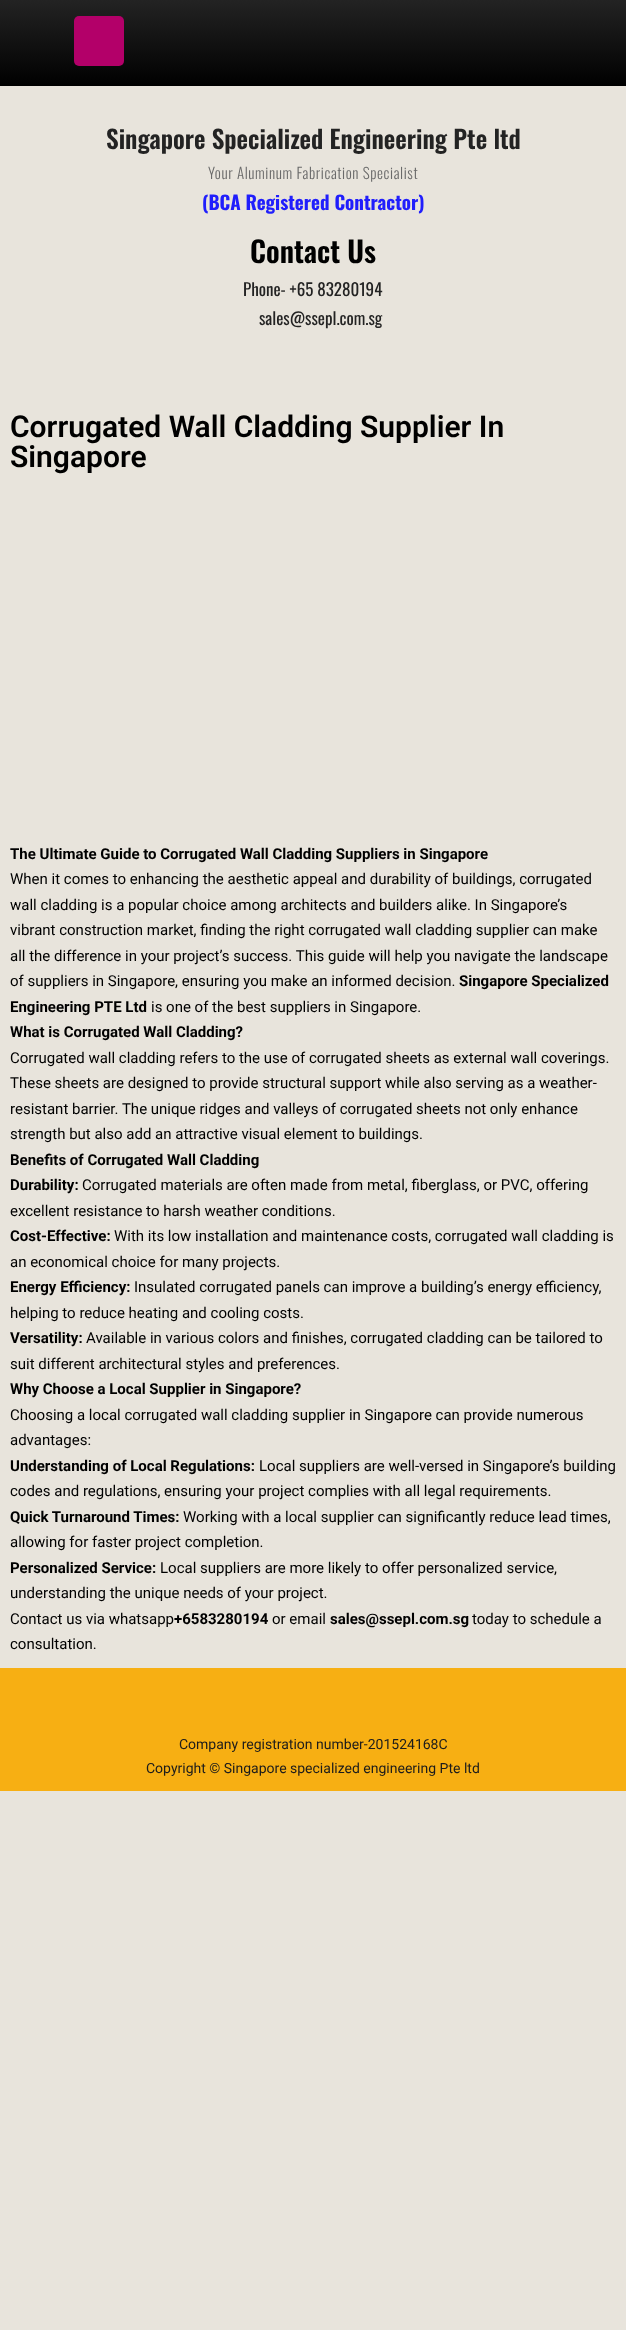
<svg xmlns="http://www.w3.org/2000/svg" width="626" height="2330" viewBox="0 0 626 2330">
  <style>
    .t1 { font: 600 25px Oswald; fill: #232323; }
    .t2 { font: 300 15px Oswald; letter-spacing: 0.6px; fill: #6a6a6a; }
    .t3 { font: bold 19px Oswald; fill: #201efc; }
    .t4 { font: 600 29px Oswald; fill: #000; }
    .t5 { font: 17px Oswald; fill: #232323; }
    .t6 { font: 600 30px Roboto; fill: #000; }
    .t7 { font: bold 15px Roboto; fill: #000; }
    .t8 { font: 15px Roboto; fill: #000; }
    .t9 { font: 14px Roboto; fill: #1c1c1c; }
  </style>
  <defs>
    <linearGradient id="g1" gradientUnits="userSpaceOnUse" x1="313" y1="0" x2="313" y2="86"><stop offset="0" stop-color="#232323"/><stop offset="1" stop-color="#000"/></linearGradient>
  </defs>
  <rect width="100%" height="100%" fill="#e8e4dc"/>
  <rect x="0" y="0" width="626" height="86" fill="url(#g1)"/>
  <rect x="74" y="16" width="50" height="50" rx="5" fill="#b30069"/>
  <text x="106" y="149" class="t1">Singapore Specialized Engineering Pte ltd</text>
  <text x="208" y="179" class="t2">Your Aluminum Fabrication Specialist</text>
  <text x="202" y="210" class="t3">(BCA Registered Contractor)</text>
  <text x="250" y="263" class="t4">Contact Us</text>
  <text x="243" y="296" class="t5">Phone- +65 83280194</text>
  <text x="259" y="325" class="t5">sales@ssepl.com.sg</text>
  <text x="10" y="437" class="t6">Corrugated Wall Cladding Supplier In</text>
  <text x="10" y="467" class="t6">Singapore</text>
  <text x="10" y="859" class="t7">The Ultimate Guide to Corrugated Wall Cladding Suppliers in Singapore</text>
  <text x="10" y="884" class="t8">When it comes to enhancing the aesthetic appeal and durability of buildings, corrugated</text>
  <text x="10" y="910" class="t8">wall cladding is a popular choice among architects and builders alike. In Singapore’s</text>
  <text x="10" y="935" class="t8">vibrant construction market, finding the right corrugated wall cladding supplier can make</text>
  <text x="10" y="961" class="t8">all the difference in your project’s success. This guide will help you navigate the landscape</text>
  <text x="10" y="986" class="t8">of suppliers in Singapore, ensuring you make an informed decision.</text>
  <text x="459" y="986" class="t7">Singapore Specialized</text>
  <text x="10" y="1012" class="t7">Engineering PTE Ltd</text>
  <text x="151" y="1012" class="t8">is one of the best suppliers in Singapore.</text>
  <text x="10" y="1037" class="t7">What is Corrugated Wall Cladding?</text>
  <text x="10" y="1063" class="t8">Corrugated wall cladding refers to the use of corrugated sheets as external wall coverings.</text>
  <text x="10" y="1088" class="t8">These sheets are designed to provide structural support while also serving as a weather-</text>
  <text x="10" y="1114" class="t8">resistant barrier. The unique ridges and valleys of corrugated sheets not only enhance</text>
  <text x="10" y="1139" class="t8">strength but also add an attractive visual element to buildings.</text>
  <text x="10" y="1165" class="t7">Benefits of Corrugated Wall Cladding</text>
  <text x="10" y="1190" class="t7">Durability:</text>
  <text x="82" y="1190" class="t8">Corrugated materials are often made from metal, fiberglass, or PVC, offering</text>
  <text x="10" y="1216" class="t8">excellent resistance to harsh weather conditions.</text>
  <text x="10" y="1241" class="t7">Cost-Effective:</text>
  <text x="114" y="1241" class="t8">With its low installation and maintenance costs, corrugated wall cladding is</text>
  <text x="10" y="1267" class="t8">an economical choice for many projects.</text>
  <text x="10" y="1292" class="t7">Energy Efficiency:</text>
  <text x="134" y="1292" class="t8">Insulated corrugated panels can improve a building’s energy efficiency,</text>
  <text x="10" y="1318" class="t8">helping to reduce heating and cooling costs.</text>
  <text x="10" y="1343" class="t7">Versatility:</text>
  <text x="86" y="1343" class="t8">Available in various colors and finishes, corrugated cladding can be tailored to</text>
  <text x="10" y="1369" class="t8">suit different architectural styles and preferences.</text>
  <text x="10" y="1394" class="t7">Why Choose a Local Supplier in Singapore?</text>
  <text x="10" y="1420" class="t8">Choosing a local corrugated wall cladding supplier in Singapore can provide numerous</text>
  <text x="10" y="1445" class="t8">advantages:</text>
  <text x="10" y="1471" class="t7">Understanding of Local Regulations:</text>
  <text x="259" y="1471" class="t8">Local suppliers are well-versed in Singapore’s building</text>
  <text x="10" y="1496" class="t8">codes and regulations, ensuring your project complies with all legal requirements.</text>
  <text x="10" y="1522" class="t7">Quick Turnaround Times:</text>
  <text x="183" y="1522" class="t8">Working with a local supplier can significantly reduce lead times,</text>
  <text x="10" y="1547" class="t8">allowing for faster project completion.</text>
  <text x="10" y="1573" class="t7">Personalized Service:</text>
  <text x="160" y="1573" class="t8">Local suppliers are more likely to offer personalized service,</text>
  <text x="10" y="1598" class="t8">understanding the unique needs of your project.</text>
  <text x="10" y="1624" class="t8">Contact us via whatsapp</text>
  <text x="174" y="1624" class="t7">+6583280194</text>
  <text x="272" y="1624" class="t8">or email</text>
  <text x="330" y="1624" class="t7">sales@ssepl.com.sg</text>
  <text x="472" y="1624" class="t8">today to schedule a</text>
  <text x="10" y="1649" class="t8">consultation.</text>
  <rect x="0" y="1668" width="626" height="123" fill="#f7af13"/>
  <text x="179" y="1749" class="t9">Company registration number-201524168C</text>
  <text x="146" y="1773" class="t9">Copyright © Singapore specialized engineering Pte ltd</text>
</svg>
